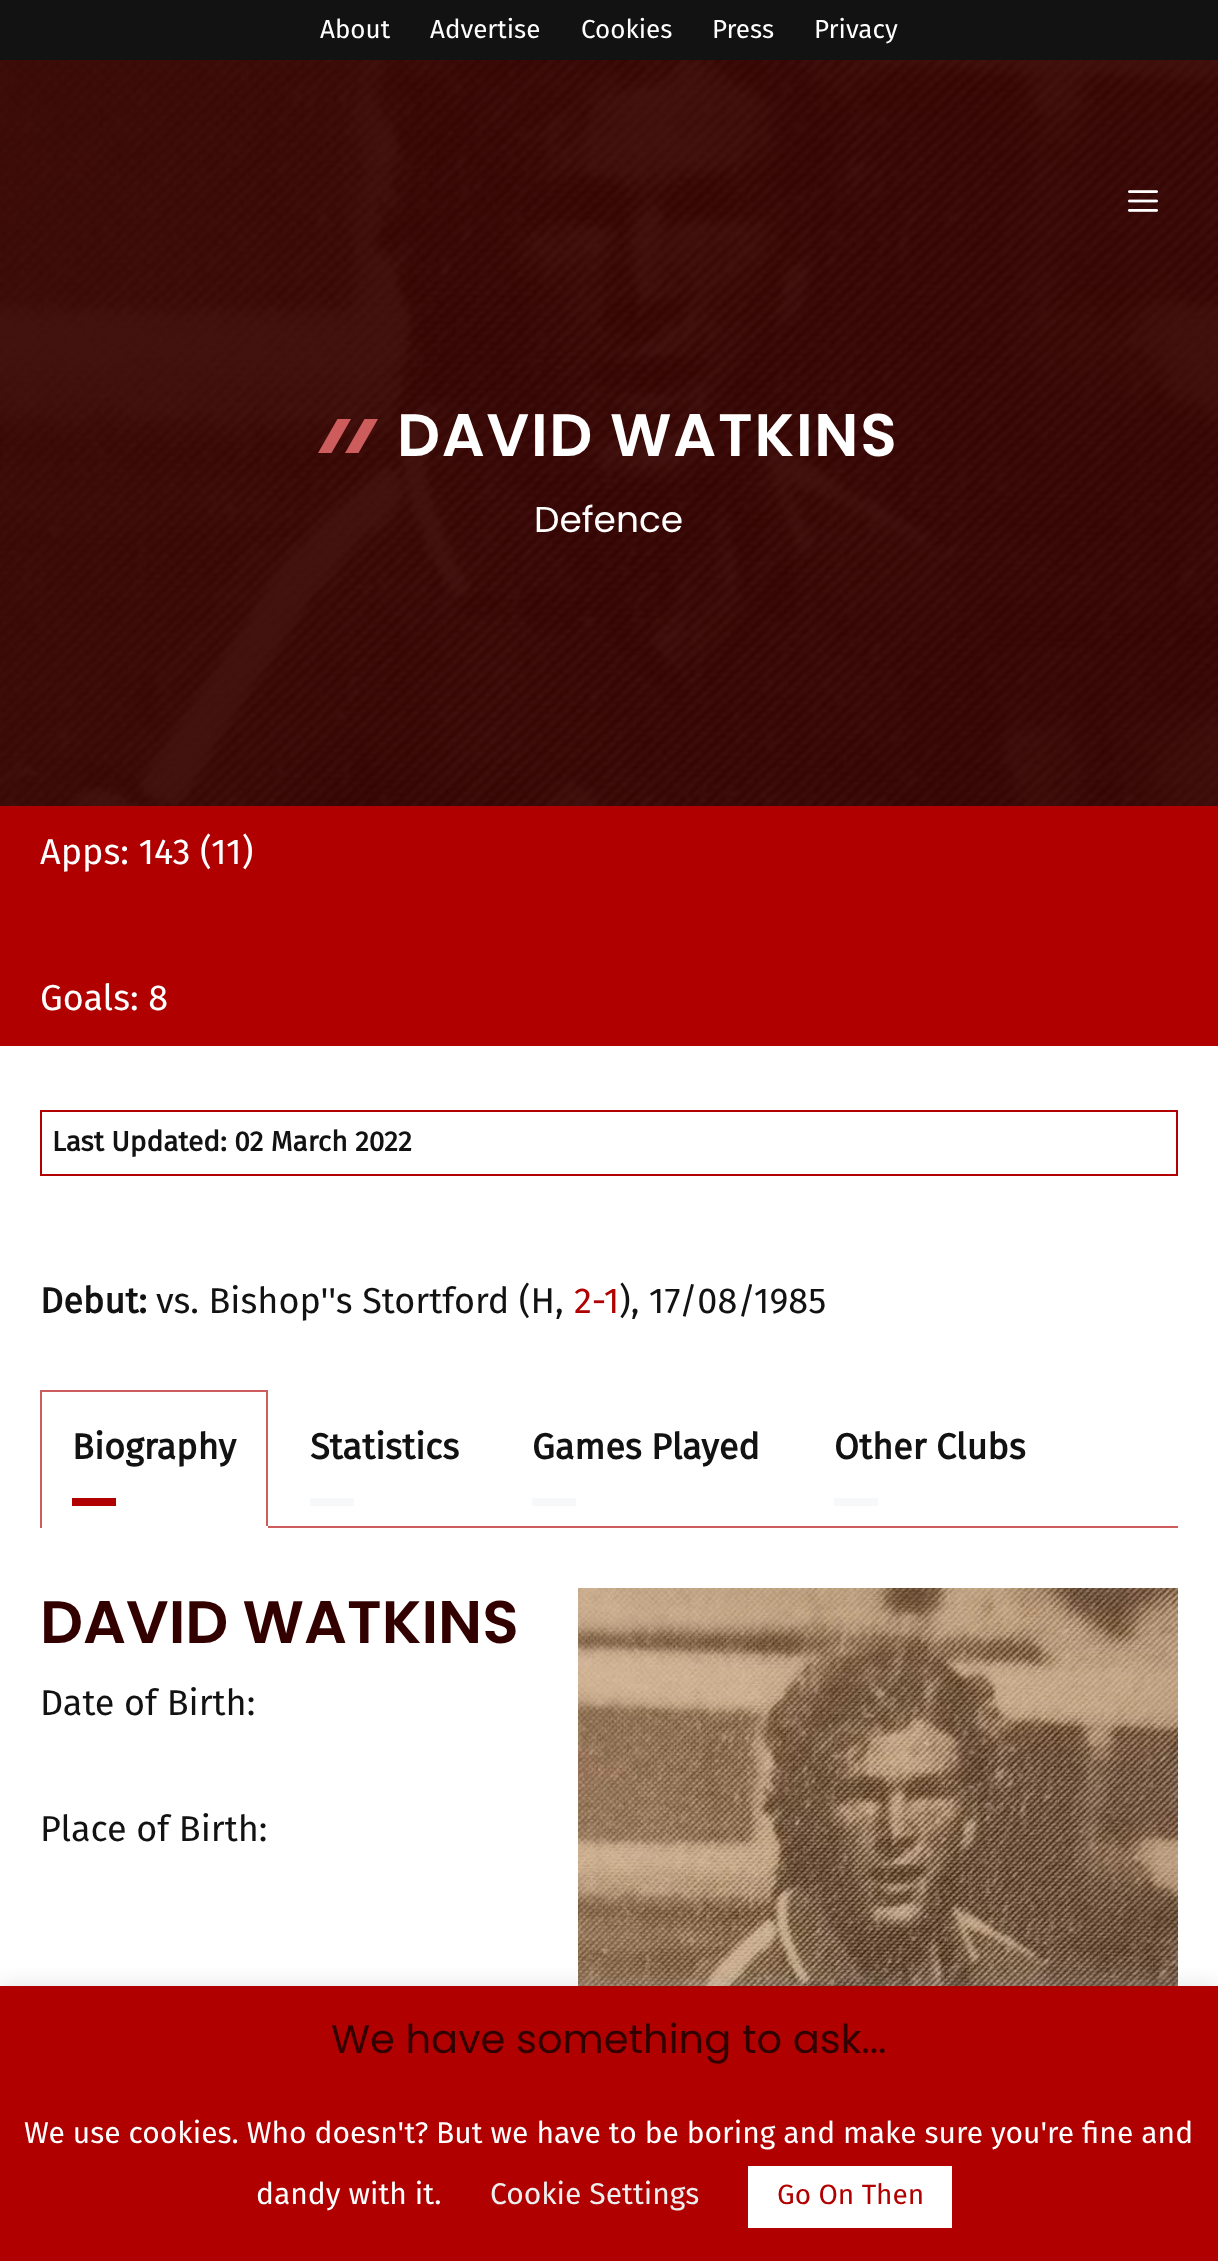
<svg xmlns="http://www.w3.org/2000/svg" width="1218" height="2261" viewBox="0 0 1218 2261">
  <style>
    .t1 { font: 26px Fira Sans; fill: #fff; }
    .t2 { font: 600 60px Poppins; letter-spacing: 1.75px; fill: #fff; }
    .t3 { font: 36px Poppins; fill: #fff; }
    .t4 { font: 36px Fira Sans; fill: #fff; }
    .t5 { font: bold 28px Fira Sans; fill: #121212; }
    .t6 { font: bold 36px Fira Sans; fill: #121212; }
    .t7 { font: 36px Fira Sans; fill: #121212; }
    .t8 { font: 36px Fira Sans; fill: #b00000; }
    .t9 { font: 600 60px Poppins; fill: #300; }
    .t10 { font: 40px Poppins; fill: #300; }
    .t11 { font: 30px Fira Sans; fill: #fff; }
    .t12 { font: 30px Fira Sans; fill: #eee; }
    .t13 { font: 28px Fira Sans; fill: #b00000; }
  </style>
  <rect width="100%" height="100%" fill="#fff"/>
  <rect x="0" y="0" width="1218" height="60" fill="#121212"/>
  <text x="320" y="38" class="t1">About</text>
  <text x="430" y="38" class="t1">Advertise</text>
  <text x="581" y="38" class="t1">Cookies</text>
  <text x="712" y="38" class="t1">Press</text>
  <text x="814" y="38" class="t1">Privacy</text>
  <rect x="0" y="60" width="1218" height="746" fill="#300"/>
  <image x="0" y="60" width="1218" height="746" href="images/2.png"/>
  <image x="1128" y="190" width="30" height="22" href="images/1.png"/>
  <path d="M331.5 453H318L337.5 419H351Z" fill="#cd5c5c"/>
  <path d="M358.5 453H345L364.5 419H378Z" fill="#cd5c5c"/>
  <text x="397" y="456" class="t2">DAVID WATKINS</text>
  <text x="534" y="532" class="t3">Defence</text>
  <rect x="0" y="806" width="1218" height="240" fill="#b00000"/>
  <text x="40" y="864" class="t4">Apps: 143 (11)</text>
  <text x="40" y="1010" class="t4">Goals: 8</text>
  <rect x="41" y="1111" width="1136" height="64" fill="none" stroke="#b00000" stroke-width="2"/>
  <text x="52" y="1151" class="t5">Last Updated: 02 March 2022</text>
  <text x="40" y="1313" class="t6">Debut:</text>
  <text x="156" y="1313" class="t7">vs. Bishop''s Stortford (H,</text>
  <text x="574" y="1313" class="t8">2-1</text>
  <text x="619" y="1313" class="t7">), 17/08/1985</text>
  <rect x="40" y="1390" width="228" height="2" fill="#cd5c5c"/>
  <rect x="266" y="1390" width="2" height="138" fill="#cd5c5c"/>
  <rect x="266" y="1526" width="2" height="2" fill="#fff"/>
  <rect x="40" y="1390" width="2" height="138" fill="#cd5c5c"/>
  <text x="72" y="1459" class="t6">Biography</text>
  <rect x="72" y="1498" width="44" height="8" fill="#b00000"/>
  <text x="310" y="1459" class="t6">Statistics</text>
  <rect x="310" y="1498" width="44" height="8" fill="#f7f8f9"/>
  <text x="532" y="1459" class="t6">Games Played</text>
  <rect x="532" y="1498" width="44" height="8" fill="#f7f8f9"/>
  <text x="834" y="1459" class="t6">Other Clubs</text>
  <rect x="834" y="1498" width="44" height="8" fill="#f7f8f9"/>
  <rect x="268" y="1526" width="910" height="2" fill="#cd5c5c"/>
  <text x="40" y="1643" class="t9">DAVID WATKINS</text>
  <text x="40" y="1715" class="t7">Date of Birth:</text>
  <text x="40" y="1841" class="t7">Place of Birth:</text>
  <image x="578" y="1588" width="600" height="398" href="images/3.png"/>
  <rect x="0" y="1984" width="1218" height="276" fill="#acabab4d" filter="blur(10px)"/>
  <rect x="0" y="1986" width="1218" height="275" fill="#b00000"/>
  <text x="331" y="2053" class="t10">We have something to ask...</text>
  <text x="24" y="2143" class="t11">We use cookies. Who doesn't? But we have to be boring and make sure you're fine and</text>
  <text x="256" y="2204" class="t11">dandy with it.</text>
  <text x="490" y="2204" class="t12">Cookie Settings</text>
  <rect x="748" y="2166" width="204" height="62" fill="#fff"/>
  <text x="777" y="2204" class="t13">Go On Then</text>
</svg>
